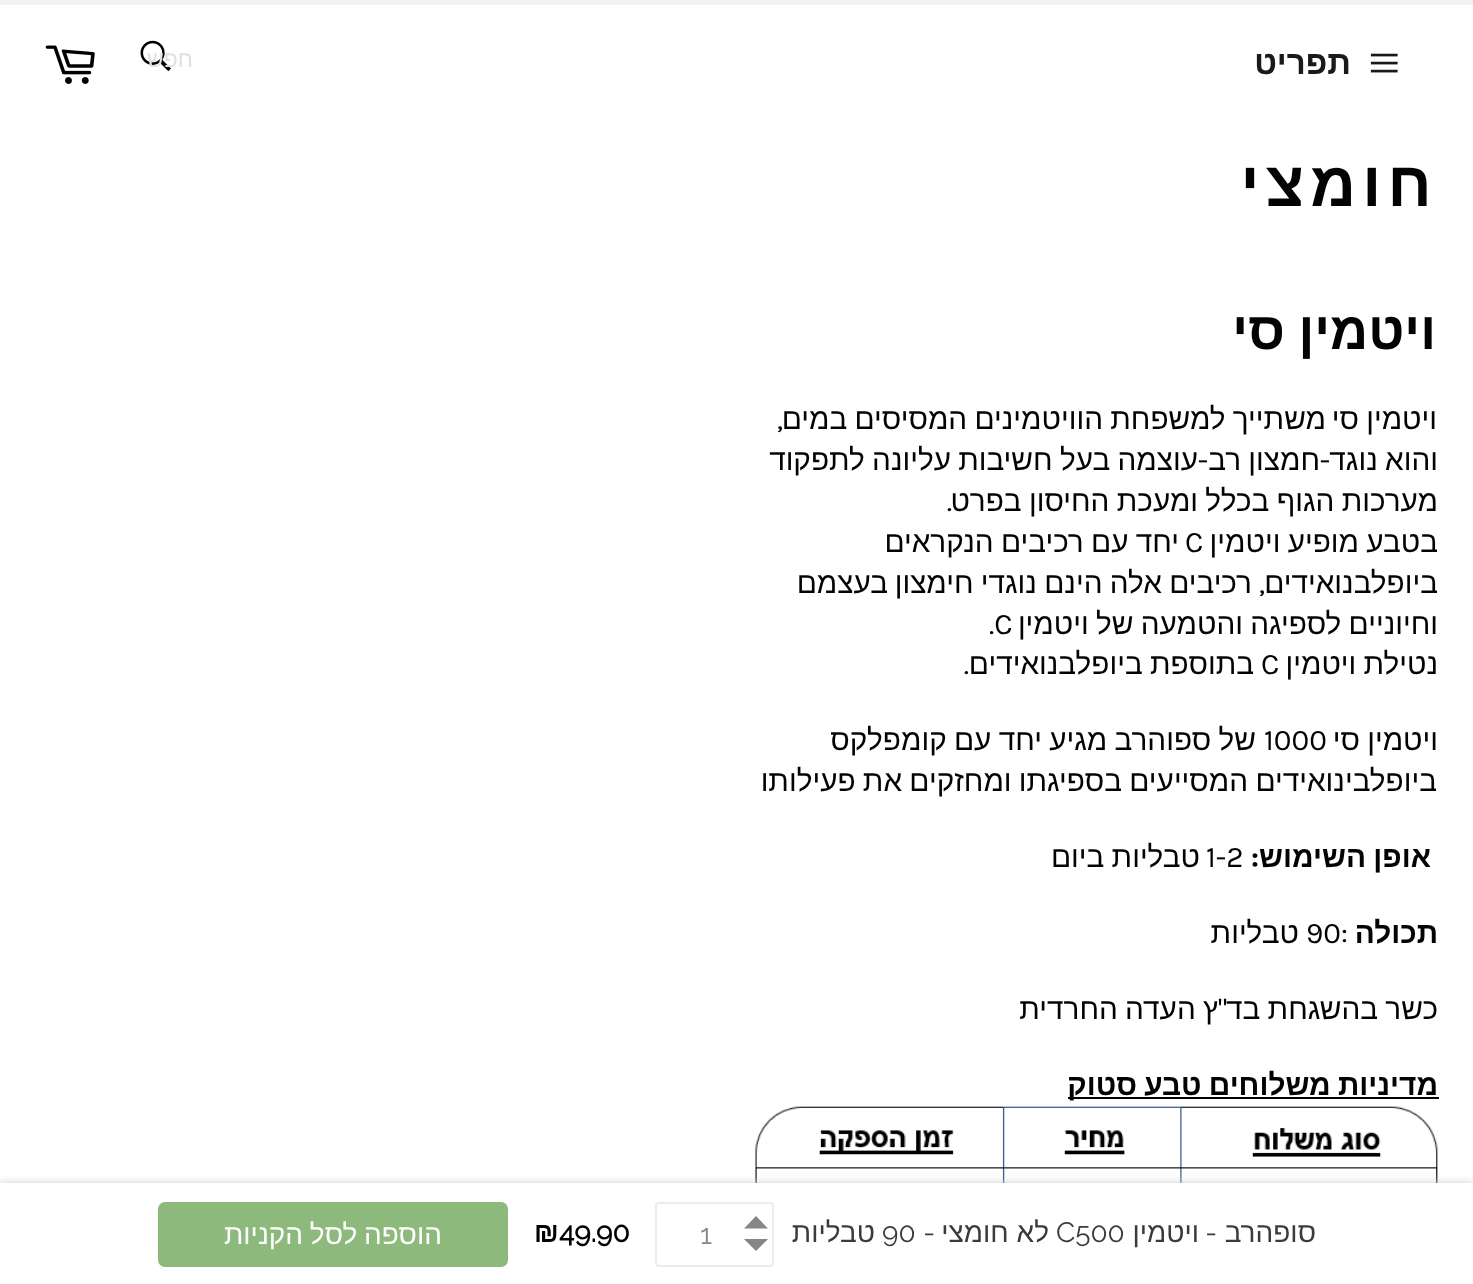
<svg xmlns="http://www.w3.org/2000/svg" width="1473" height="1284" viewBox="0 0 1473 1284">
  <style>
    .t1 { font: bold 33px Liberation Sans; direction: rtl; fill: #1a1a1a; }
    .t2 { font: 23px Liberation Sans; direction: rtl; fill: #e0e0e0; }
    .t3 { font: bold 63px Liberation Sans; letter-spacing: 6.25px; direction: rtl; fill: #030303; }
    .t4 { font: bold 52.5px Liberation Sans; direction: rtl; fill: #030303; }
    .t5 { font: 29.75px Liberation Sans; direction: rtl; fill: #030303; }
    .t6 { font: 29.75px Karla; direction: rtl; fill: #030303; }
    .t7 { font: 29.75px Karla; fill: #030303; }
    .t8 { font: bold 29.75px Liberation Sans; direction: rtl; fill: #030303; }
    .t9 { font: bold 29.75px Karla; direction: rtl; fill: #030303; }
    .t10 { font: 28px Liberation Sans; direction: rtl; fill: #3b3b3b; }
    .t11 { font: 100 28px Raleway; direction: rtl; fill: #3b3b3b; }
    .t12 { font: 100 28px Raleway; fill: #3b3b3b; }
    .t13 { font: 100 28px Raleway; fill: #868686; }
    .t14 { font: bold 28px Raleway; fill: #030303; }
    .t15 { font: bold 28px Liberation Sans; fill: #030303; }
    .t16 { font: 28px Liberation Sans; direction: rtl; fill: #fff; }
  </style>
  <rect width="100%" height="100%" fill="#fff"/>
  <rect x="0" y="0" width="1473" height="5" fill="#f2f2f2"/>
  <image x="1370" y="53" width="28" height="20" href="images/1.png"/>
  <text x="1351" y="74" class="t1">תפריט</text>
  <image x="140" y="40" width="31" height="32" href="images/2.png"/>
  <text x="193" y="67" class="t2">חפש</text>
  <image x="45" y="45" width="50" height="39" href="images/3.png"/>
  <text x="1438" y="206" class="t3">חומצי</text>
  <text x="1436" y="349" word-spacing="-1" class="t4">ויטמין סי</text>
  <text x="1437" y="429" word-spacing="-1" class="t5">ויטמין סי</text>
  <text x="1326" y="429" word-spacing="-1" class="t5">משתייך למשפחת הוויטמינים המסיסים במים</text>
  <text x="783" y="429" class="t6">,</text>
  <text x="1438" y="470" word-spacing="-1" class="t5">והוא נוגד</text>
  <text x="1330" y="470" class="t6">-</text>
  <text x="1320" y="470" word-spacing="-1" class="t5">חמצון רב</text>
  <text x="1198" y="470" word-spacing="-1" class="t5">עוצמה בעל חשיבות</text>
  <text x="1208" y="470" class="t6">-</text>
  <text x="951" y="470" word-spacing="-1" class="t5">עליונה לתפקוד</text>
  <text x="1438" y="511" word-spacing="-1" class="t5">מערכות הגוף בכלל ומעכת החיסון בפרט</text>
  <text x="952" y="511" class="t6">.</text>
  <text x="1438" y="552" word-spacing="-1" class="t5">בטבע מופיע ויטמין</text>
  <text x="1185" y="552" class="t7">C</text>
  <text x="1179" y="552" word-spacing="-1" class="t5">יחד עם רכיבים הנקראים</text>
  <text x="1438" y="593" class="t5">ביופלבנואידים</text>
  <text x="1265" y="593" class="t6">,</text>
  <text x="1252" y="593" word-spacing="-1" class="t5">רכיבים אלה הינם נוגדי חימצון</text>
  <text x="888" y="593" class="t5">בעצמם</text>
  <text x="1438" y="634" word-spacing="-1" class="t5">וחיוניים לספיגה והטמעה של ויטמין</text>
  <text x="989" y="634" class="t7">.C</text>
  <text x="1438" y="674" word-spacing="-1" class="t5">נטילת ויטמין</text>
  <text x="1261" y="674" class="t7">C</text>
  <text x="1254" y="674" word-spacing="-1" class="t5">בתוספת ביופלבנואידים</text>
  <text x="969" y="674" class="t6">.</text>
  <text x="1438" y="750" word-spacing="-1" class="t5">ויטמין סי</text>
  <text x="1264" y="750" class="t7">1000</text>
  <text x="1256" y="750" word-spacing="-1" class="t5">של ספוהרב מגיע יחד עם קומפלקס</text>
  <text x="1437" y="791" word-spacing="-1" class="t5">ביופלבינואידים המסייעים בספיגתו ומחזקים את פעילותו</text>
  <text x="1431" y="867" word-spacing="-1" class="t8">אופן השימוש</text>
  <text x="1259" y="867" class="t9">:</text>
  <text x="1206" y="867" class="t7">1-2</text>
  <text x="1200" y="867" word-spacing="-1" class="t5">טבליות ביום</text>
  <text x="1438" y="943" class="t8">תכולה</text>
  <text x="1306" y="943" class="t7">90:</text>
  <text x="1299" y="943" class="t5">טבליות</text>
  <text x="1438" y="1019" word-spacing="-1" class="t5">כשר בהשגחת בד</text>
  <text x="1218" y="1019" word-spacing="-1" class="t5">ץ העדה החרדית</text>
  <text x="1227" y="1019" class="t6">"</text>
  <rect x="1068" y="1097" width="371" height="2" fill="#000"/>
  <text x="1438" y="1095" word-spacing="-1" class="t8">מדיניות משלוחים טבע סטוק</text>
  <image x="755" y="1106" width="683" height="77" href="images/4.png"/>
  <rect x="0" y="1183" width="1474" height="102" fill="#cdcdcd" filter="blur(4.5px)"/>
  <rect x="0" y="1183" width="1473" height="101" fill="#fff"/>
  <text x="1316" y="1242" class="t10">סופהרב</text>
  <text x="1217" y="1242" class="t11">-</text>
  <text x="1199" y="1242" class="t10">ויטמין</text>
  <text x="1056" y="1242" class="t12">C500</text>
  <text x="1049" y="1242" class="t10">לא חומצי</text>
  <text x="935" y="1242" class="t11">-</text>
  <text x="882" y="1242" class="t12">90</text>
  <text x="875" y="1242" class="t10">טבליות</text>
  <rect x="656" y="1203" width="117" height="63" rx="3" fill="none" stroke="#ececec" stroke-width="2"/>
  <path d="M768 1228.5H744L756 1216ZM744 1239H768L756 1251Z" fill="#868686"/>
  <text x="700" y="1244" class="t13">1</text>
  <text x="559" y="1242" class="t14">49.90</text>
  <text x="534" y="1242" class="t15">₪</text>
  <rect x="159" y="1203" width="348" height="63" rx="6" fill="#8db97c" stroke="#8db97c" stroke-width="2"/>
  <text x="442" y="1244" word-spacing="-1" class="t16">הוספה לסל הקניות</text>
</svg>
